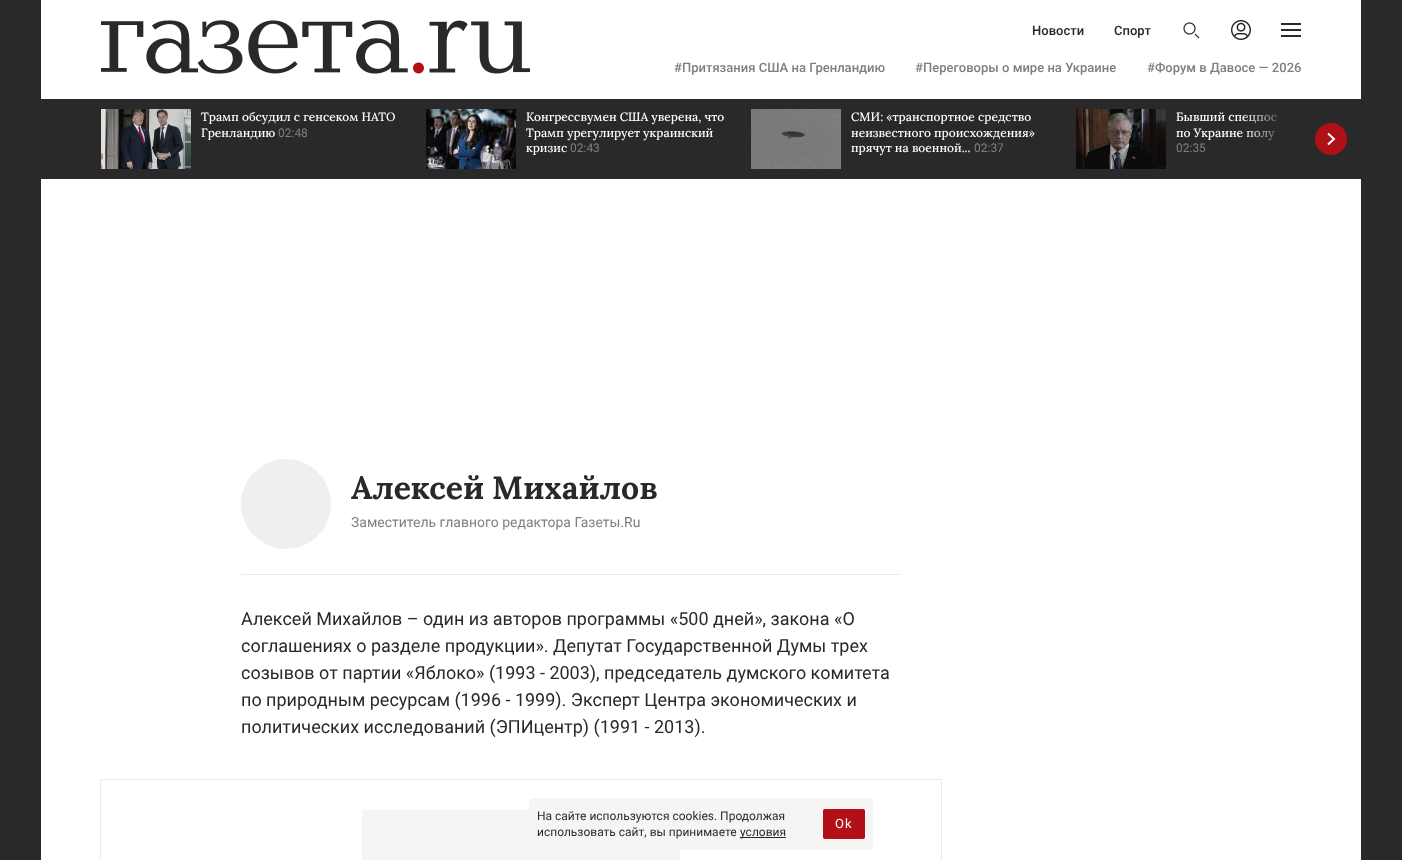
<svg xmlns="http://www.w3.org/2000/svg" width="1402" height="860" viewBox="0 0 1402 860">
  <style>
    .t1 { font: 500 13px Roboto; fill: #292929; }
    .t2 { font: 500 13px Roboto; fill: #7f7f7f; }
    .t3 { font: 500 12px Lora; fill: #fff; }
    .t4 { font: 12px Roboto; fill: #7f7f7f; }
    .t5 { font: bold 32px Lora; fill: #292929; }
    .t6 { font: 14px Roboto; fill: #7f7f7f; }
    .t7 { font: 18px Roboto; fill: #292929; }
    .t8 { font: 12px Roboto; fill: #292929; }
    .t9 { font: 13px Roboto; letter-spacing: 1px; fill: #fff; }
  </style>
  <defs>
    <linearGradient id="g1" gradientUnits="userSpaceOnUse" x1="1241" y1="139" x2="1361" y2="139"><stop offset="0" stop-color="#292929" stop-opacity="0"/><stop offset="0.4" stop-color="#292929" stop-opacity="0.95"/><stop offset="1" stop-color="#292929"/></linearGradient>
  </defs>
  <rect width="100%" height="100%" fill="#292929"/>
  <rect x="41" y="0" width="1320" height="860" fill="#fff"/>
  <image x="101" y="20" width="429" height="54" href="images/1.png"/>
  <text x="1032" y="35" class="t1">Новости</text>
  <text x="1114" y="35" class="t1">Спорт</text>
  <image x="1183" y="22" width="17" height="17" href="images/2.png"/>
  <image x="1231" y="20" width="20" height="20" href="images/3.png"/>
  <rect x="1281" y="29" width="20" height="2" fill="#292929"/>
  <rect x="1281" y="23" width="20" height="2" fill="#292929"/>
  <rect x="1281" y="35" width="20" height="2" fill="#292929"/>
  <text x="674" y="72" class="t2">#Притязания США на Гренландию</text>
  <text x="915" y="72" class="t2">#Переговоры о мире на Украине</text>
  <text x="1147" y="72" class="t2">#Форум в Давосе — 2026</text>
  <rect x="41" y="99" width="1312" height="80" fill="#292929"/>
  <image x="101" y="109" width="90" height="60" href="images/4.png"/>
  <text x="201" y="121" class="t3">Трамп обсудил с генсеком НАТО</text>
  <text x="201" y="137" class="t3">Гренландию</text>
  <text x="278" y="137" class="t4">02:48</text>
  <image x="426" y="109" width="90" height="60" href="images/5.png"/>
  <text x="526" y="121" class="t3">Конгрессвумен США уверена, что</text>
  <text x="526" y="137" class="t3">Трамп урегулирует украинский</text>
  <text x="526" y="152" class="t3">кризис</text>
  <text x="570" y="152" class="t4">02:43</text>
  <image x="751" y="109" width="90" height="60" href="images/6.png"/>
  <text x="851" y="121" class="t3">СМИ: «транспортное средство</text>
  <text x="851" y="137" class="t3">неизвестного происхождения»</text>
  <text x="851" y="152" class="t3">прячут на военной...</text>
  <text x="974" y="152" class="t4">02:37</text>
  <image x="1076" y="109" width="90" height="60" href="images/7.png"/>
  <text x="1176" y="121" class="t3">Бывший спецпос</text>
  <text x="1176" y="137" class="t3">по Украине полу</text>
  <text x="1176" y="152" class="t4">02:35</text>
  <rect x="1242" y="99" width="119" height="80" fill="url(#g1)"/>
  <circle cx="1331" cy="139" r="16" fill="#b11116"/>
  <path d="M1328 133.5L1334 139L1328 144.5" fill="none" stroke="#fff" stroke-width="2"/>
  <circle cx="286" cy="504" r="45" fill="#efefef"/>
  <text x="351" y="499" class="t5">Алексей Михайлов</text>
  <text x="351" y="527" class="t6">Заместитель главного редактора Газеты.Ru</text>
  <rect x="241" y="574" width="660" height="1" fill="#eaeaea"/>
  <text x="241" y="625" class="t7">Алексей Михайлов – один из авторов программы «500 дней», закона «О</text>
  <text x="241" y="652" class="t7">соглашениях о разделе продукции». Депутат Государственной Думы трех</text>
  <text x="241" y="679" class="t7">созывов от партии «Яблоко» (1993 - 2003), председатель думского комитета</text>
  <text x="241" y="706" class="t7">по природным ресурсам (1996 - 1999). Эксперт Центра экономических и</text>
  <text x="241" y="733" class="t7">политических исследований (ЭПИцентр) (1991 - 2013).</text>
  <rect x="100.5" y="779.5" width="841" height="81" fill="none" stroke="#eaeaea"/>
  <rect x="362" y="810" width="318" height="50" fill="#f5f5f5"/>
  <rect x="529" y="798" width="344" height="52" rx="4" fill="#f5f5f5"/>
  <text x="537" y="820" class="t8">На сайте используются cookies. Продолжая</text>
  <text x="537" y="836" class="t8">использовать сайт, вы принимаете</text>
  <rect x="740" y="837" width="46" height="1" fill="#292929"/>
  <text x="740" y="836" class="t8">условия</text>
  <rect x="823" y="809" width="42" height="30" rx="2" fill="#b11116"/>
  <text x="835" y="828" class="t9">Ok</text>
</svg>
